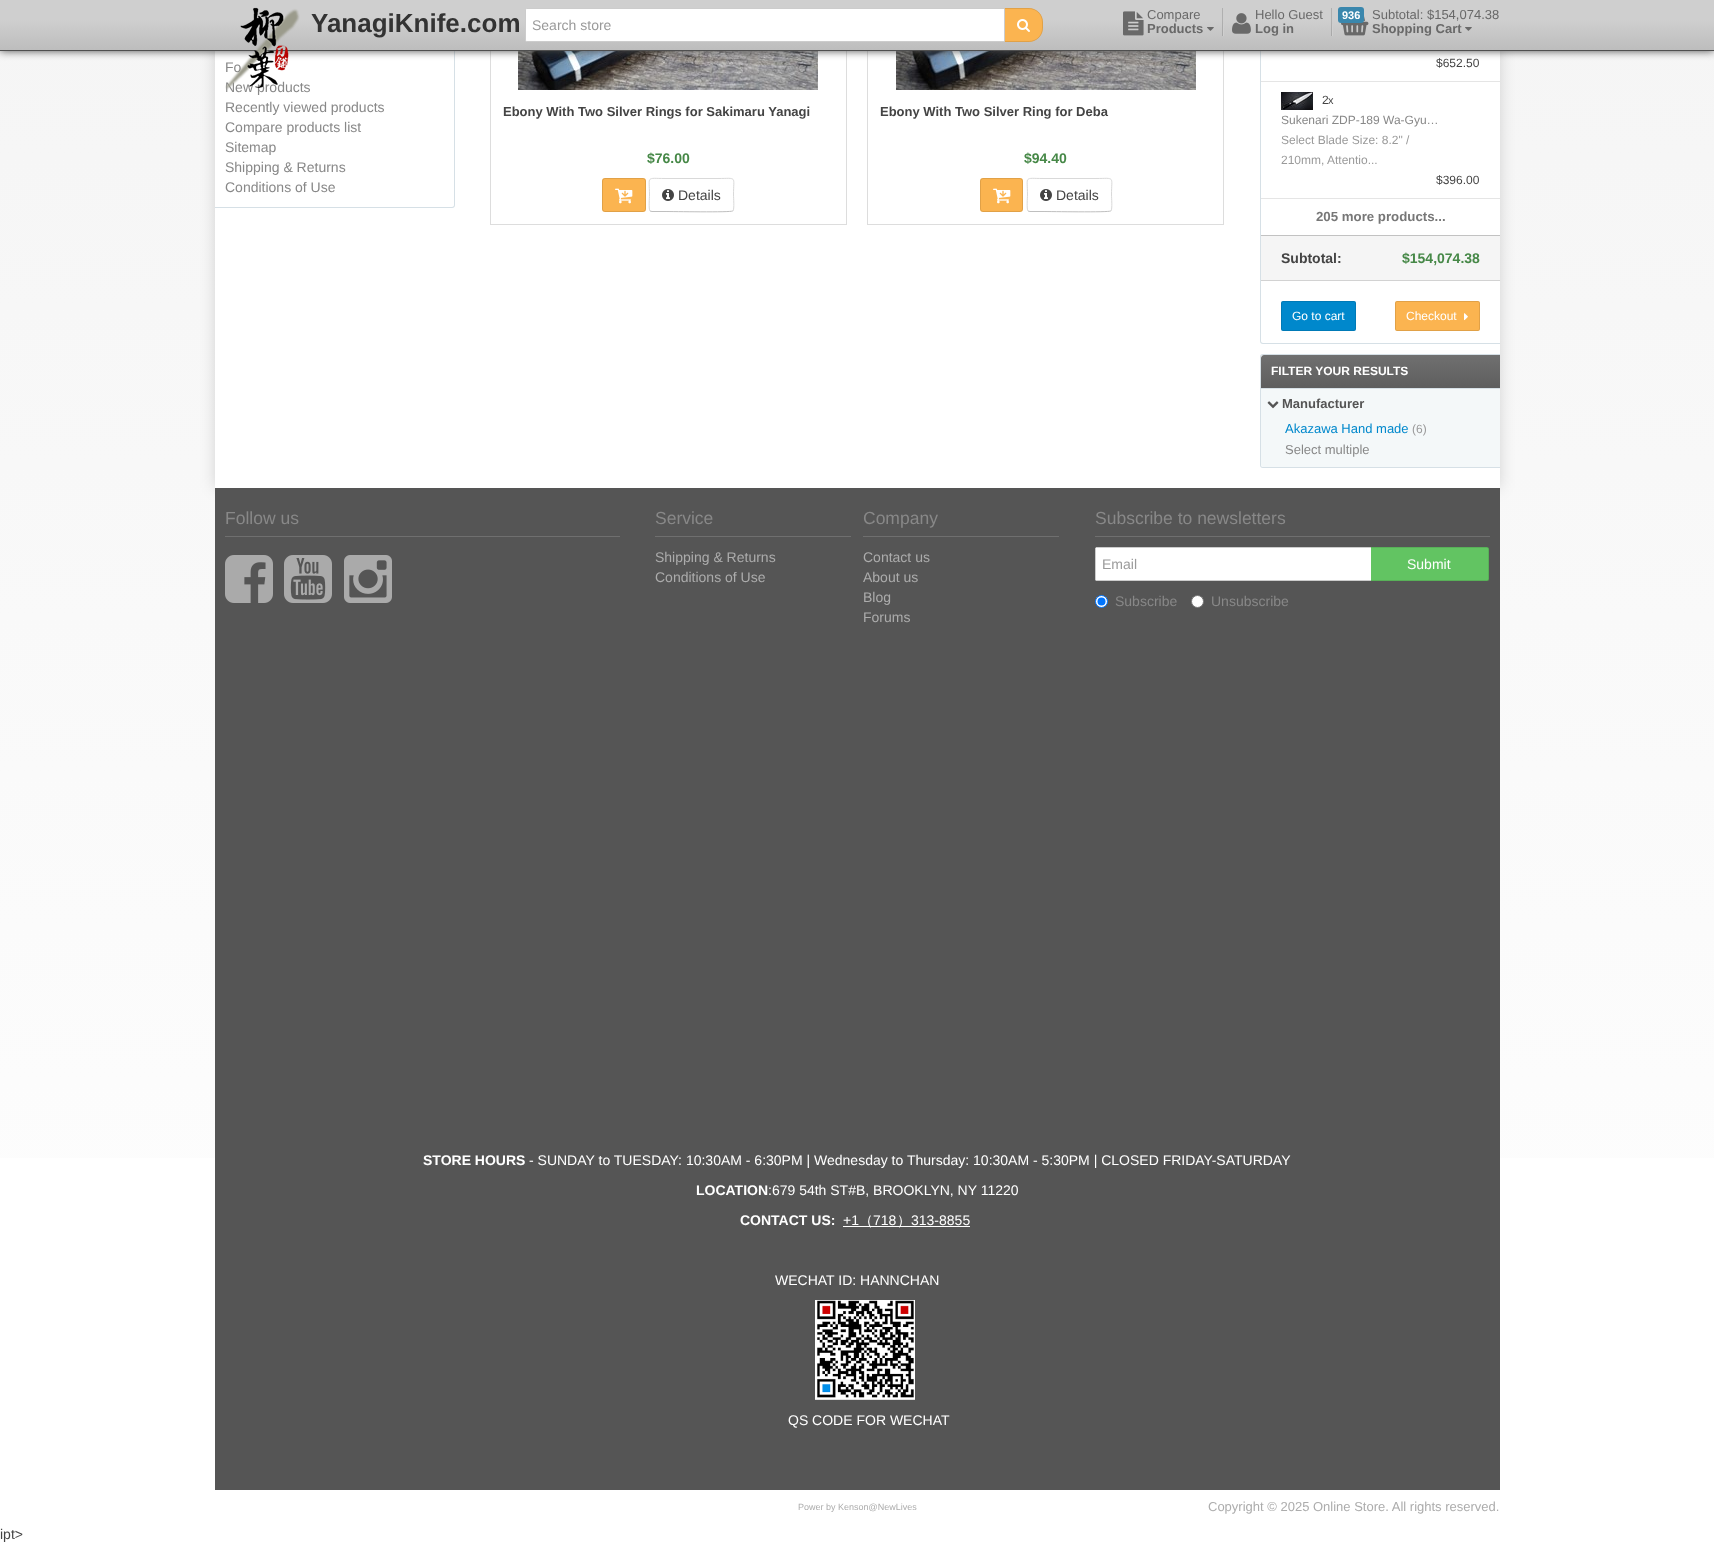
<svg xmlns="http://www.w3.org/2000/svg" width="1714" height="1544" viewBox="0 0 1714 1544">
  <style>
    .t1 { font: 14px Liberation Sans; fill: #888; }
    .t2 { font: bold 26px Liberation Sans; fill: #333; }
    .t3 { font: 14px Liberation Sans; fill: #9a9a9a; }
    .t4 { font: 13px Liberation Sans; fill: #696969; }
    .t5 { font: bold 13px Liberation Sans; fill: #696969; }
    .t6 { font: bold 11px Liberation Sans; fill: #fff; }
    .t7 { font: bold 13px Liberation Sans; fill: #444; }
    .t8 { font: bold 14px Liberation Sans; fill: #468847; }
    .t9 { font: 14px Liberation Sans; fill: #444; }
    .t10 { font: 12px Liberation Sans; fill: #444; }
    .t11 { font: 11px Liberation Sans; fill: #444; }
    .t12 { font: 12px Liberation Sans; fill: #888; }
    .t13 { font: 12px Liberation Sans; fill: #9a9a9a; }
    .t14 { font: bold 13.25px Liberation Sans; fill: #777; }
    .t15 { font: bold 14px Liberation Sans; fill: #444; }
    .t16 { font: 12px Liberation Sans; fill: #fff; }
    .t17 { font: bold 12px Liberation Sans; fill: #fff; }
    .t18 { font: bold 13px Liberation Sans; fill: #555; }
    .t19 { font: 13px Liberation Sans; fill: #08c; }
    .t20 { font: 13px Liberation Sans; fill: #888; }
    .t21 { font: 17.5px Liberation Sans; fill: #888; }
    .t22 { font: 14px Liberation Sans; fill: #acacac; }
    .t23 { font: 14px Liberation Sans; fill: #fff; }
    .t24 { font: bold 14px Liberation Sans; fill: #fff; }
    .t25 { font: 500 14px WenQuanYi Zen Hei; fill: #fff; }
    .t26 { font: 9px Liberation Sans; fill: #acacac; }
    .t27 { font: 13px Liberation Sans; fill: #acacac; }
  </style>
  <defs>
    <linearGradient id="g1" gradientUnits="userSpaceOnUse" x1="857" y1="0" x2="857" y2="1544"><stop offset="0" stop-color="#f5f5f5"/><stop offset="1" stop-color="#fff"/></linearGradient>
    <linearGradient id="g2" gradientUnits="userSpaceOnUse" x1="857" y1="0" x2="857" y2="50"><stop offset="0" stop-color="#cfcfcf"/><stop offset="0.4" stop-color="#cfcfcf"/><stop offset="1" stop-color="#bdbdbd"/></linearGradient>
    <linearGradient id="g3" gradientUnits="userSpaceOnUse" x1="1381" y1="355" x2="1381" y2="388"><stop offset="0" stop-color="#707070"/><stop offset="1" stop-color="#5e5e5e"/></linearGradient>
  </defs>
  <rect width="100%" height="100%" fill="#fff"/>
  <rect x="0" y="51" width="1714" height="1107" fill="url(#g1)"/>
  <rect x="215" y="-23" width="1285" height="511" fill="#00000026" filter="blur(7.5px)"/>
  <rect x="215" y="51" width="1285" height="437" fill="#fff"/>
  <path d="M215-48H452C454-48 455-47 455-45V205C455 207 454 208 452 208H215ZM215-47H452C453-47 454-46 454-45V205C454 206 453 207 452 207H215Z" fill="#d6e0e6" fill-rule="evenodd"/>
  <rect x="490.5" y="-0.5" width="356" height="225" fill="none" stroke="#ddd"/>
  <image x="518" y="51" width="300" height="39" href="images/7.png"/>
  <rect x="867.5" y="-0.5" width="356" height="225" fill="none" stroke="#ddd"/>
  <image x="896" y="51" width="300" height="39" href="images/10.png"/>
  <path d="M1263-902H1500V344H1263C1261 344 1260 343 1260 341V-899C1260-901 1261-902 1263-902ZM1263-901H1500V343H1263C1262 343 1261 342 1261 341V-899C1261-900 1262-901 1263-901Z" fill="#d6e0e6" fill-rule="evenodd"/>
  <rect x="0" y="0" width="1714" height="51" fill="#4f4f4f" filter="blur(4px)"/>
  <rect x="0" y="0" width="1714" height="50" fill="url(#g2)"/>
  <rect x="0" y="50" width="1714" height="1" fill="#4f4f4f"/>
  <text x="225" y="72" class="t1">Fo</text>
  <text x="225" y="92" class="t1">New products</text>
  <image x="225" y="7" width="75" height="83" href="images/1.png"/>
  <text x="311" y="32" class="t2">YanagiKnife.com</text>
  <path d="M1004 8H1029C1036.5 8 1043 14.5 1043 22V28C1043 35.5 1036.5 42 1029 42H1004Z" fill="#fbb450"/>
  <path d="M1004.5 8.5H1029C1036.5 8.5 1042.5 14.5 1042.5 22V28C1042.5 35.5 1036.5 41.5 1029 41.5H1004.5Z" fill="none" stroke="#0000001a"/>
  <path d="M527 8.5H1004.5V41.5H527C526 41.5 525.5 41 525.5 40V10C525.5 9 526 8.5 527 8.5Z" fill="#fff" stroke="#ccc"/>
  <text x="532" y="30" class="t3">Search store</text>
  <image x="1017" y="19" width="13" height="13" href="images/2.png"/>
  <image x="1123" y="11" width="21" height="25" href="images/3.png"/>
  <text x="1147" y="19" class="t4">Compare</text>
  <text x="1147" y="33" class="t5">Products</text>
  <image x="1207" y="27" width="7" height="4" href="images/4.png"/>
  <rect x="1222" y="8" width="1" height="28" fill="#00000026"/>
  <rect x="1223" y="24" width="1" height="12" fill="#cfcfcf"/>
  <image x="1232" y="13" width="19" height="21" href="images/5.png"/>
  <text x="1255" y="19" class="t4">Hello Guest</text>
  <text x="1255" y="33" class="t5">Log in</text>
  <rect x="1331" y="8" width="1" height="28" fill="#00000026"/>
  <rect x="1332" y="24" width="1" height="12" fill="#cfcfcf"/>
  <image x="1341" y="16" width="28" height="20" href="images/6.png"/>
  <rect x="1338" y="7" width="26" height="16" rx="3" fill="#3a87ad"/>
  <text x="1342" y="19" class="t6">936</text>
  <text x="1372" y="19" class="t4">Subtotal: $154,074.38</text>
  <text x="1372" y="33" class="t5">Shopping Cart</text>
  <image x="1465" y="27" width="7" height="4" href="images/4.png"/>
  <text x="225" y="112" class="t1">Recently viewed products</text>
  <text x="225" y="132" class="t1">Compare products list</text>
  <text x="225" y="152" class="t1">Sitemap</text>
  <text x="225" y="172" class="t1">Shipping &amp; Returns</text>
  <text x="225" y="192" class="t1">Conditions of Use</text>
  <text x="503" y="116" class="t7">Ebony With Two Silver Rings for Sakimaru Yanagi</text>
  <text x="647" y="163" class="t8">$76.00</text>
  <rect x="602" y="178" width="44" height="34" rx="3" fill="#fbb450"/>
  <rect x="602.5" y="178.5" width="43" height="33" rx="2.5" fill="none" stroke="#0000001a"/>
  <image x="615" y="188" width="18" height="16" href="images/8.png"/>
  <path d="M733 211H732.5C730.5 212.5 672.5 211.5 665 211.5H652L650 211" fill="none" stroke="#bfbfbf"/>
  <path d="M650 211C648.5 209 649.5 197.5 649.5 195C649.5 175.5 645.5 178.5 665 178.5H718C737.5 178.5 733.5 175.5 733.5 195C733.5 197.5 734.5 209 733 211" fill="none" stroke="#d9d9d9"/>
  <image x="662" y="189" width="12" height="12" href="images/9.png"/>
  <text x="678" y="200" class="t9">Details</text>
  <text x="880" y="116" class="t7">Ebony With Two Silver Ring for Deba</text>
  <text x="1024" y="163" class="t8">$94.40</text>
  <rect x="980" y="178" width="43" height="34" rx="3" fill="#fbb450"/>
  <rect x="980.5" y="178.5" width="42" height="33" rx="2.5" fill="none" stroke="#0000001a"/>
  <image x="993" y="188" width="18" height="16" href="images/8.png"/>
  <path d="M1111 211H1110.5C1108.5 212.5 1050.5 211.5 1043 211.5H1030L1028 211" fill="none" stroke="#bfbfbf"/>
  <path d="M1028 211C1026.5 209 1027.5 197.5 1027.5 195C1027.5 175.5 1023.5 178.5 1043 178.5H1096C1115.5 178.5 1111.5 175.5 1111.5 195C1111.5 197.5 1112.5 209 1111 211" fill="none" stroke="#d9d9d9"/>
  <image x="1040" y="189" width="12" height="12" href="images/9.png"/>
  <text x="1056" y="200" class="t9">Details</text>
  <rect x="1261" y="81" width="239" height="1" fill="#e5e5e5"/>
  <text x="1436" y="67" class="t10">$652.50</text>
  <rect x="1261" y="198" width="239" height="1" fill="#e5e5e5"/>
  <image x="1281" y="92" width="32" height="18" href="images/11.png"/>
  <text x="1322" y="104" class="t10">2</text>
  <text x="1328" y="104" class="t11">x</text>
  <text x="1281" y="124" class="t12">Sukenari ZDP-189 Wa-Gyu…</text>
  <text x="1281" y="144" class="t13">Select Blade Size: 8.2" /</text>
  <text x="1281" y="164" class="t13">210mm,</text>
  <text x="1327" y="164" class="t13">Attentio...</text>
  <text x="1436" y="184" class="t10">$396.00</text>
  <text x="1316" y="221" class="t14">205 more products...</text>
  <rect x="1261" y="236" width="239" height="44" fill="#f5f5f5"/>
  <rect x="1261" y="235" width="239" height="1" fill="#c2c2c2"/>
  <rect x="1261" y="280" width="239" height="1" fill="#d2d2d2"/>
  <text x="1281" y="263" class="t15">Subtotal:</text>
  <text x="1402" y="263" class="t8">$154,074.38</text>
  <rect x="1281" y="301" width="75" height="30" rx="2" fill="#08c"/>
  <rect x="1281.5" y="301.5" width="74" height="29" rx="1.5" fill="none" stroke="#0000001a"/>
  <text x="1292" y="320" class="t16">Go to cart</text>
  <rect x="1395" y="301" width="85" height="30" rx="2" fill="#fbb450"/>
  <rect x="1395.5" y="301.5" width="84" height="29" rx="1.5" fill="none" stroke="#0000001a"/>
  <text x="1406" y="320" class="t16">Checkout</text>
  <image x="1464" y="313" width="4" height="8" href="images/12.png"/>
  <path d="M1263 354H1500V468H1263C1261 468 1260 467 1260 465V357C1260 355 1261 354 1263 354ZM1263 355H1500V467H1263C1262 467 1261 466 1261 465V357C1261 356 1262 355 1263 355Z" fill="#d6e0e6" fill-rule="evenodd"/>
  <path d="M1264 355H1500V388H1261V358C1261 356.5 1262.5 355 1264 355Z" fill="url(#g3)"/>
  <rect x="1261" y="388" width="239" height="1" fill="#d6e0e6"/>
  <text x="1271" y="375" class="t17">FILTER YOUR RESULTS</text>
  <path d="M1261 389H1500V467H1263C1262 467 1261 466 1261 465Z" fill="#f4f8f9"/>
  <image x="1267" y="401" width="12" height="8" href="images/13.png"/>
  <text x="1282" y="408" class="t18">Manufacturer</text>
  <text x="1285" y="433" class="t19">Akazawa Hand made</text>
  <text x="1412" y="433" class="t13">(6)</text>
  <text x="1285" y="454" class="t20">Select multiple</text>
  <rect x="215" y="488" width="1285" height="1002" fill="#555"/>
  <rect x="225" y="536" width="395" height="1" fill="#6f6f6f"/>
  <text x="225" y="524" class="t21">Follow us</text>
  <image x="225" y="555" width="48" height="48" href="images/14.png"/>
  <image x="284" y="555" width="48" height="48" href="images/15.png"/>
  <image x="344" y="555" width="48" height="48" href="images/16.png"/>
  <rect x="655" y="536" width="196" height="1" fill="#6f6f6f"/>
  <text x="655" y="524" class="t21">Service</text>
  <text x="655" y="562" class="t22">Shipping &amp; Returns</text>
  <text x="655" y="582" class="t22">Conditions of Use</text>
  <rect x="863" y="536" width="196" height="1" fill="#6f6f6f"/>
  <text x="863" y="524" class="t21">Company</text>
  <text x="863" y="562" class="t22">Contact us</text>
  <text x="863" y="582" class="t22">About us</text>
  <text x="863" y="602" class="t22">Blog</text>
  <text x="863" y="622" class="t22">Forums</text>
  <rect x="1095" y="536" width="395" height="1" fill="#6f6f6f"/>
  <text x="1095" y="524" class="t21">Subscribe to newsletters</text>
  <path d="M1370 547H1487C1488 547 1489 548 1489 549V579C1489 580 1488 581 1487 581H1370Z" fill="#62c462"/>
  <path d="M1370.5 547.5H1487C1488 547.5 1488.5 548 1488.5 549V579C1488.5 580 1488 580.5 1487 580.5H1370.5Z" fill="none" stroke="#0000001a"/>
  <path d="M1097 547H1371V581H1097C1096 581 1095 580 1095 579V549C1095 548 1096 547 1097 547Z" fill="#fff"/>
  <rect x="1096" y="547" width="275" height="1" fill="#ccc"/>
  <rect x="1096" y="580" width="275" height="1" fill="#ccc"/>
  <rect x="1095" y="548" width="1" height="32" fill="#ccc"/>
  <text x="1102" y="569" class="t3">Email</text>
  <text x="1407" y="569" class="t23">Submit</text>
  <circle cx="1101.5" cy="601.5" r="6" fill="#fff" stroke="#0075ff"/>
  <circle cx="1101.5" cy="601.5" r="4" fill="#0075ff"/>
  <text x="1115" y="606" class="t1">Subscribe</text>
  <circle cx="1197.5" cy="601.5" r="6" fill="#fff" stroke="#767676"/>
  <text x="1211" y="606" class="t1">Unsubscribe</text>
  <text x="423" y="1165" class="t24">STORE HOURS</text>
  <text x="529" y="1165" class="t23">- SUNDAY to TUESDAY: 10:30AM - 6:30PM | Wednesday to Thursday: 10:30AM - 5:30PM | CLOSED FRIDAY-SATURDAY</text>
  <text x="696" y="1195" class="t24">LOCATION</text>
  <text x="768" y="1195" class="t23">:679 54th ST#B, BROOKLYN, NY 11220</text>
  <text x="740" y="1225" class="t24">CONTACT US:</text>
  <text x="843" y="1225" class="t23">+1</text>
  <rect x="843" y="1226" width="127" height="1" fill="#fff"/>
  <text x="859" y="1225" class="t25">（</text>
  <text x="873" y="1225" class="t23">718</text>
  <text x="897" y="1225" class="t25">）</text>
  <text x="911" y="1225" class="t23">313-8855</text>
  <text x="775" y="1285" class="t23">WECHAT ID: HANNCHAN</text>
  <image x="815" y="1300" width="100" height="100" href="images/17.png"/>
  <text x="788" y="1425" class="t23">QS CODE FOR WECHAT</text>
  <text x="798" y="1510" class="t26">Power by Kenson@NewLives</text>
  <text x="1208" y="1511" class="t27">Copyright © 2025 Online Store. All rights reserved.</text>
  <text x="0" y="1539" class="t9">ipt&gt;</text>
</svg>
